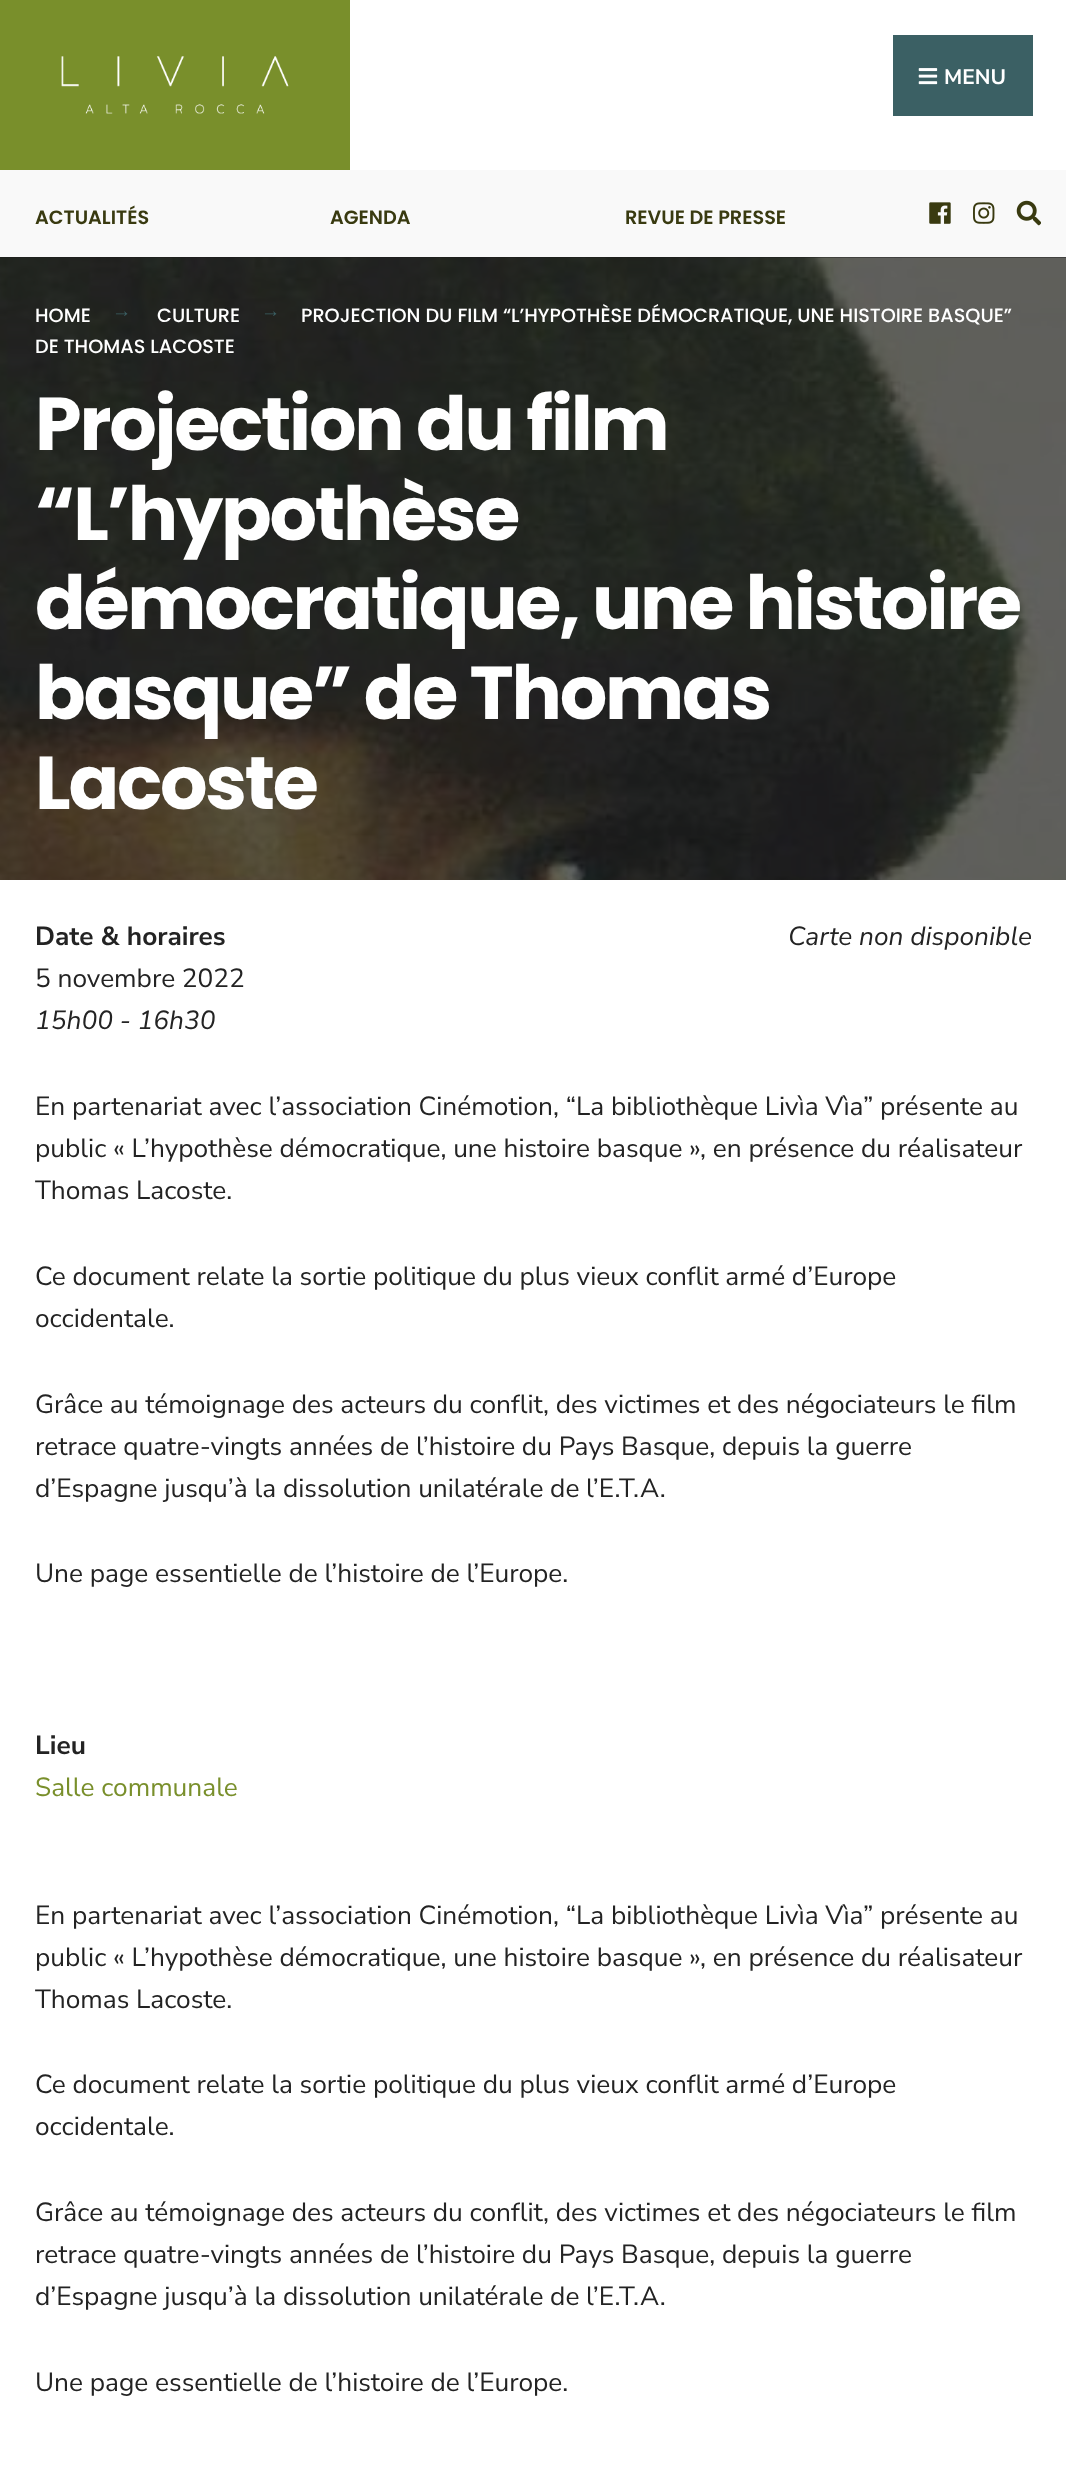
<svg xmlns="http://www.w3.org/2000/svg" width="1066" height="2491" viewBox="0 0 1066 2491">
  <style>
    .t1 { font: bold 21px Nunito Sans; fill: #fff; }
    .t2 { font: 600 19.25px Poppins; fill: #393a10; }
    .t3 { font: 500 19.25px Poppins; fill: #fff; }
    .t4 { font: 19.25px Liberation Serif; fill: #3b6064; }
    .t5 { font: bold 74.75px Poppins; letter-spacing: -2.25px; fill: #fff; }
    .t6 { font: bold 26.25px Nunito Sans; fill: #232323; }
    .t7 { font: 26.25px Nunito Sans; fill: #232323; }
    .t8 { font: italic 26.25px Nunito Sans; fill: #232323; }
    .t9 { font: 26.25px Nunito Sans; fill: #798f2b; }
  </style>
  <rect width="100%" height="100%" fill="#fff"/>
  <rect x="0" y="0" width="350" height="170" fill="#798f2b"/>
  <image x="61" y="56" width="228" height="58" href="images/1.png"/>
  <rect x="893" y="35" width="140" height="81" fill="#3b6064"/>
  <image x="918" y="68" width="20" height="17" href="images/2.png"/>
  <text x="944" y="84" class="t1">MENU</text>
  <rect x="0" y="170" width="1066" height="87" fill="#f9f9f9"/>
  <text x="35" y="224" class="t2">ACTUALITÉS</text>
  <text x="330" y="224" class="t2">AGENDA</text>
  <text x="625" y="224" class="t2">REVUE DE PRESSE</text>
  <image x="929" y="202" width="22" height="22" href="images/3.png"/>
  <image x="973" y="202" width="22" height="22" href="images/4.png"/>
  <image x="1016" y="200" width="25" height="26" href="images/5.png"/>
  <rect x="0" y="257" width="1066" height="623" fill="#1e1e1e"/>
  <image x="0" y="257" width="1066" height="623" href="images/6.png"/>
  <text x="35" y="322" class="t3">HOME</text>
  <text x="112" y="317" class="t4">→</text>
  <text x="157" y="322" class="t3">CULTURE</text>
  <text x="261" y="317" class="t4">→</text>
  <text x="301" y="322" class="t3">PROJECTION DU FILM “L’HYPOTHÈSE DÉMOCRATIQUE, UNE HISTOIRE BASQUE”</text>
  <text x="35" y="353" class="t3">DE THOMAS LACOSTE</text>
  <text x="35" y="450" class="t5">Projection du film</text>
  <text x="35" y="540" class="t5">“L’hypothèse</text>
  <text x="35" y="629" class="t5">démocratique, une histoire</text>
  <text x="35" y="719" class="t5">basque” de Thomas</text>
  <text x="35" y="809" class="t5">Lacoste</text>
  <text x="35" y="945" class="t6">Date &amp; horaires</text>
  <text x="35" y="987" class="t7">5 novembre 2022</text>
  <text x="35" y="1029" class="t8">15h00 - 16h30</text>
  <text x="788" y="945" class="t8">Carte non disponible</text>
  <text x="35" y="1115" class="t7">En partenariat avec l’association Cinémotion, “La bibliothèque Livìa Vìa” présente au</text>
  <text x="35" y="1157" class="t7">public « L’hypothèse démocratique, une histoire basque », en présence du réalisateur</text>
  <text x="35" y="1199" class="t7">Thomas Lacoste.</text>
  <text x="35" y="1285" class="t7">Ce document relate la sortie politique du plus vieux conflit armé d’Europe</text>
  <text x="35" y="1327" class="t7">occidentale.</text>
  <text x="35" y="1413" class="t7">Grâce au témoignage des acteurs du conflit</text>
  <text x="543" y="1413" class="t7">, des victimes et des négociateurs le film</text>
  <text x="35" y="1455" class="t7">retrace quatre-vingts années de l’histoire du Pays Basque, depuis la guerre</text>
  <text x="35" y="1497" class="t7">d’Espagne jusqu’à la dissolution unilatérale de l’E.</text>
  <text x="619" y="1497" class="t7">T</text>
  <text x="633" y="1497" class="t7">.</text>
  <text x="640" y="1497" class="t7">A.</text>
  <text x="35" y="1582" class="t7">Une page essentielle de l’histoire de l’Europe.</text>
  <text x="35" y="1754" class="t6">Lieu</text>
  <text x="35" y="1796" class="t9">Salle communale</text>
  <text x="35" y="1924" class="t7">En partenariat avec l’association Cinémotion, “La bibliothèque Livìa Vìa” présente au</text>
  <text x="35" y="1966" class="t7">public « L’hypothèse démocratique, une histoire basque », en présence du réalisateur</text>
  <text x="35" y="2008" class="t7">Thomas Lacoste.</text>
  <text x="35" y="2093" class="t7">Ce document relate la sortie politique du plus vieux conflit armé d’Europe</text>
  <text x="35" y="2135" class="t7">occidentale.</text>
  <text x="35" y="2221" class="t7">Grâce au témoignage des acteurs du conflit</text>
  <text x="543" y="2221" class="t7">, des victimes et des négociateurs le film</text>
  <text x="35" y="2263" class="t7">retrace quatre-vingts années de l’histoire du Pays Basque, depuis la guerre</text>
  <text x="35" y="2305" class="t7">d’Espagne jusqu’à la dissolution unilatérale de l’E.</text>
  <text x="619" y="2305" class="t7">T</text>
  <text x="633" y="2305" class="t7">.</text>
  <text x="640" y="2305" class="t7">A.</text>
  <text x="35" y="2391" class="t7">Une page essentielle de l’histoire de l’Europe.</text>
</svg>
